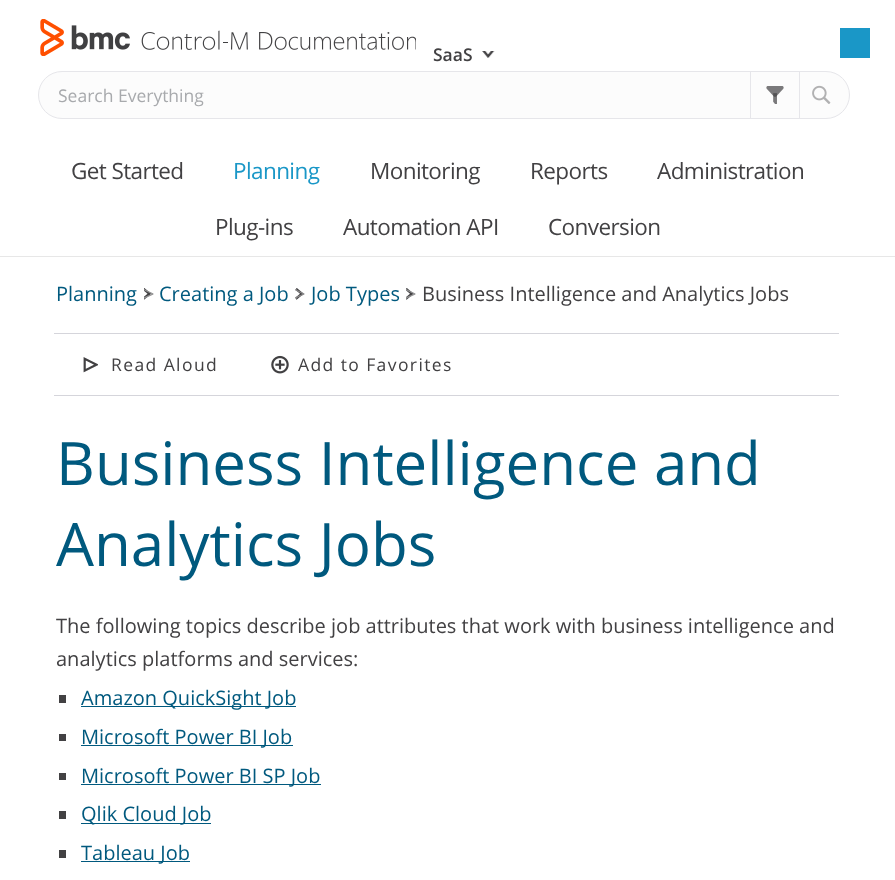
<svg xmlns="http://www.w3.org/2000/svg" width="895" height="880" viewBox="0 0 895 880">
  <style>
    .t1 { font: 600 17.5px Open Sans; fill: #424143; }
    .t2 { font: 17.5px Open Sans; fill: #a8aaad; }
    .t3 { font: 22.5px Open Sans; letter-spacing: -0.6px; fill: #424143; }
    .t4 { font: 22.5px Open Sans; letter-spacing: -0.6px; fill: #1a97c7; }
    .t5 { font: 20px Open Sans; fill: #00597e; }
    .t6 { font: 20px Open Sans; fill: #929293; }
    .t7 { font: 20px Open Sans; fill: #424143; }
    .t8 { font: 20px Open Sans; fill: #8b8a8b; }
    .t9 { font: 17.5px Open Sans; letter-spacing: 1.4px; fill: #424143; }
    .t10 { font: 60px Open Sans; fill: #00597e; }
  </style>
  <rect width="100%" height="100%" fill="#fff"/>
  <rect x="0" y="256" width="895" height="1" fill="#e7e7e7"/>
  <rect x="840" y="28" width="30" height="30" fill="#1a97c7"/>
  <image x="40" y="19" width="376" height="37" href="images/1.png"/>
  <text x="433" y="61" class="t1">SaaS</text>
  <image x="482" y="51" width="13" height="7" href="images/2.png"/>
  <rect x="38.5" y="71.5" width="811" height="47" rx="23.5" fill="#fcfcfc" stroke="#e6e6ea"/>
  <text x="58" y="102" class="t2">Search Everything</text>
  <image x="766" y="86" width="18" height="18" href="images/3.png"/>
  <path d="M800 71V119L799 118V72ZM750 119V71L751 72V118Z" fill="#e6e6ea"/>
  <image x="812" y="85" width="19" height="19" href="images/4.png"/>
  <text x="71" y="179" class="t3">Get Started</text>
  <text x="233" y="179" class="t4">Planning</text>
  <text x="370" y="179" class="t3">Monitoring</text>
  <text x="530" y="179" class="t3">Reports</text>
  <text x="657" y="179" class="t3">Administration</text>
  <text x="215" y="235" class="t3">Plug-ins</text>
  <text x="343" y="235" class="t3">Automation API</text>
  <text x="548" y="235" class="t3">Conversion</text>
  <text x="56" y="301" class="t5">Planning</text>
  <image x="144" y="288" width="7" height="12" href="images/5.png"/>
  <text x="143" y="301" class="t6">&gt;</text>
  <text x="159" y="301" class="t5">Creating a Job</text>
  <text x="311" y="301" class="t5">Job Types</text>
  <text x="422" y="301" class="t7">Business Intelligence and Analytics Jobs</text>
  <image x="296" y="288" width="8" height="12" href="images/6.png"/>
  <text x="294" y="301" class="t8">&gt;</text>
  <image x="406" y="288" width="8" height="12" href="images/6.png"/>
  <text x="405" y="301" class="t6">&gt;</text>
  <rect x="54" y="333" width="785" height="1" fill="#d5d5db"/>
  <rect x="54" y="395" width="785" height="1" fill="#d5d5db"/>
  <image x="83" y="357" width="15" height="16" href="images/7.png"/>
  <text x="111" y="371" class="t9">Read Aloud</text>
  <image x="271" y="355" width="18" height="19" href="images/8.png"/>
  <text x="298" y="371" class="t9">Add to Favorites</text>
  <text x="56" y="485" class="t10">Business Intelligence and</text>
  <text x="56" y="566" class="t10">Analytics Jobs</text>
  <text x="56" y="633" class="t7">The following topics describe job attributes that work with business intelligence and</text>
  <text x="56" y="666" class="t7">analytics platforms and services:</text>
  <rect x="59" y="695" width="7" height="8" fill="#424143"/>
  <rect x="81" y="706" width="215" height="1" fill="#00597e"/>
  <text x="81" y="705" class="t5">Amazon QuickSight Job</text>
  <rect x="59" y="734" width="7" height="7" fill="#424143"/>
  <rect x="81" y="745" width="212" height="1" fill="#00597e"/>
  <text x="81" y="744" class="t5">Microsoft Power BI Job</text>
  <rect x="59" y="773" width="7" height="7" fill="#424143"/>
  <rect x="81" y="784" width="240" height="1" fill="#00597e"/>
  <text x="81" y="783" class="t5">Microsoft Power BI SP Job</text>
  <rect x="59" y="811" width="7" height="8" fill="#424143"/>
  <rect x="81" y="823" width="130" height="1" fill="#00597e"/>
  <text x="81" y="821" class="t5">Qlik Cloud Job</text>
  <rect x="59" y="850" width="7" height="8" fill="#424143"/>
  <rect x="81" y="861" width="109" height="1" fill="#00597e"/>
  <text x="81" y="860" class="t5">Tableau Job</text>
</svg>
